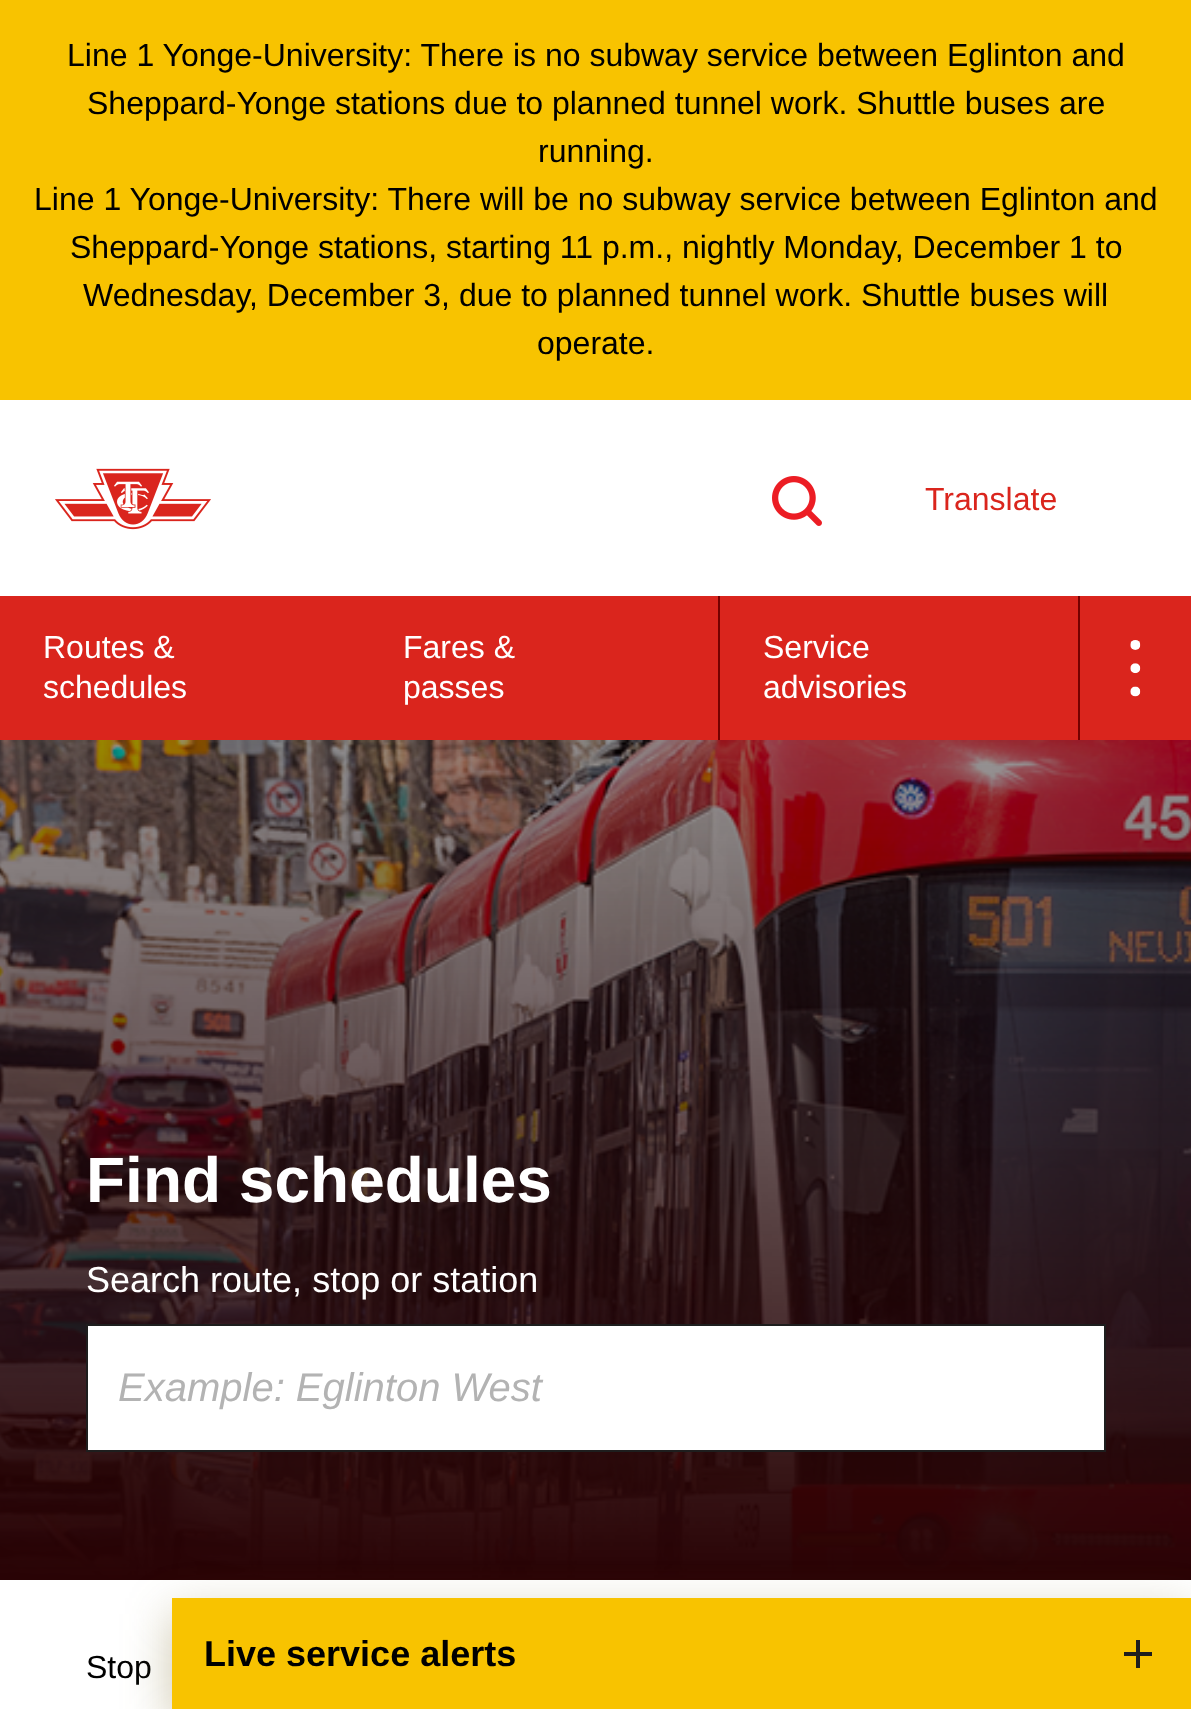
<svg xmlns="http://www.w3.org/2000/svg" width="1191" height="1709" viewBox="0 0 1191 1709">
  <style>
    .t1 { font: 32px Liberation Sans; fill: #000; }
    .t2 { font: 32px Liberation Sans; fill: #da251d; }
    .t3 { font: 32px Liberation Sans; fill: #fff; }
    .t4 { font: bold 64px Liberation Sans; fill: #fff; }
    .t5 { font: 36px Liberation Sans; fill: #fff; }
    .t6 { font: italic 40px Liberation Sans; fill: #b3b3b3; }
    .t7 { font: bold 36px Liberation Sans; fill: #000; }
  </style>
  <rect width="100%" height="100%" fill="#fff"/>
  <rect x="0" y="0" width="1191" height="400" fill="#f8c300"/>
  <text x="67" y="66" class="t1">Line 1 Yonge-University: There is no subway service between Eglinton and</text>
  <text x="87" y="114" class="t1">Sheppard-Yonge stations due to planned tunnel work. Shuttle buses are</text>
  <text x="538" y="162" class="t1">running.</text>
  <text x="34" y="210" class="t1">Line 1 Yonge-University: There will be no subway service between Eglinton and</text>
  <text x="70" y="258" class="t1">Sheppard-Yonge stations, starting 11 p.m., nightly Monday, December 1 to</text>
  <text x="83" y="306" class="t1">Wednesday, December 3, due to planned tunnel work. Shuttle buses will</text>
  <text x="537" y="354" class="t1">operate.</text>
  <image x="55" y="468" width="156" height="62" href="images/1.png"/>
  <image x="772" y="476" width="50" height="50" href="images/2.png"/>
  <text x="925" y="510" class="t2">Translate</text>
  <rect x="0" y="596" width="1191" height="144" fill="#da251d"/>
  <text x="43" y="658" class="t3">Routes &amp;</text>
  <text x="43" y="698" class="t3">schedules</text>
  <rect x="718" y="596" width="2" height="144" fill="#740000"/>
  <text x="403" y="658" class="t3">Fares &amp;</text>
  <text x="403" y="698" class="t3">passes</text>
  <rect x="1078" y="596" width="2" height="144" fill="#740000"/>
  <text x="763" y="658" class="t3">Service</text>
  <text x="763" y="698" class="t3">advisories</text>
  <image x="1130" y="640" width="11" height="57" href="images/3.png"/>
  <image x="0" y="740" width="1191" height="840" href="images/4.png"/>
  <text x="86" y="1202" class="t4">Find schedules</text>
  <text x="86" y="1292" class="t5">Search route, stop or station</text>
  <rect x="87" y="1325" width="1018" height="126" fill="#fff" stroke="#1e1e1e" stroke-width="2"/>
  <text x="118" y="1401" class="t6">Example: Eglinton West</text>
  <text x="86" y="1678" class="t1">Stop</text>
  <rect x="172" y="1614" width="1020" height="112" fill="#7b6a2661" filter="blur(24px)"/>
  <rect x="172" y="1598" width="1019" height="111" fill="#f8c300"/>
  <text x="204" y="1666" class="t7">Live service alerts</text>
  <rect x="1124" y="1652" width="28" height="4" fill="#1e1e1e"/>
  <rect x="1136" y="1640" width="4" height="28" fill="#1e1e1e"/>
</svg>
